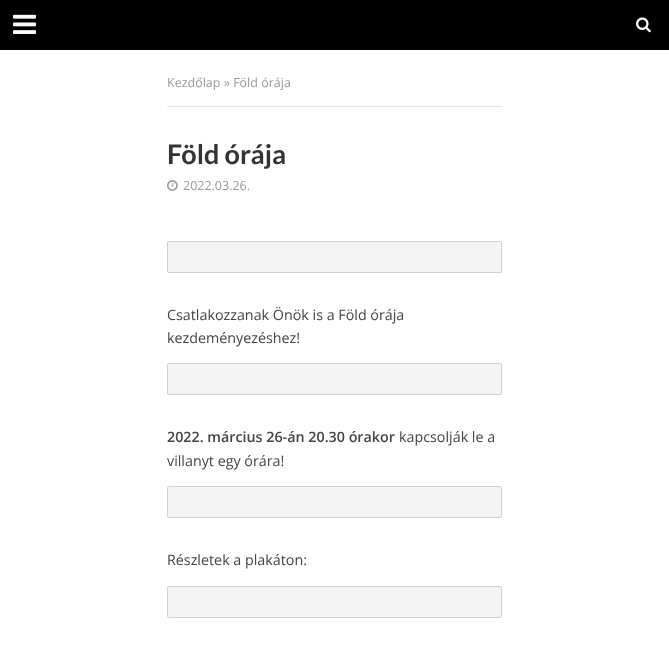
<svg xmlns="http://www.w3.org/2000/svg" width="669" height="658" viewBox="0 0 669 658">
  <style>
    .t1 { font: 12.5px Open Sans; fill: #999; }
    .t2 { font: bold 27px Lato; fill: #333; }
    .t3 { font: 14.3px Open Sans; fill: #444; }
    .t4 { font: 600 14.3px Open Sans; fill: #444; }
  </style>
  <rect width="100%" height="100%" fill="#fff"/>
  <rect x="0" y="0" width="669" height="50" fill="#000"/>
  <image x="13" y="14" width="24" height="20" href="images/1.png"/>
  <image x="636" y="17" width="15" height="16" href="images/2.png"/>
  <rect x="167" y="106" width="335" height="1" fill="#e3e3e3"/>
  <text x="167" y="87" class="t1">Kezdőlap » Föld órája</text>
  <text x="167" y="164" class="t2">Föld órája</text>
  <image x="167" y="180" width="11" height="11" href="images/3.png"/>
  <text x="183" y="190" class="t1">2022.03.26.</text>
  <rect x="167.5" y="241.5" width="334" height="31" rx="1.5" fill="#f4f4f4" stroke="#d1d1d1"/>
  <text x="167" y="320" class="t3">Csatlakozzanak Önök is a Föld órája</text>
  <text x="167" y="343" class="t3">kezdeményezéshez!</text>
  <rect x="167.5" y="363.5" width="334" height="31" rx="1.5" fill="#f4f4f4" stroke="#d1d1d1"/>
  <text x="167" y="442" class="t4">2022. március 26-án 20.30 órakor</text>
  <text x="399" y="442" class="t3">kapcsolják le a</text>
  <text x="167" y="466" class="t3">villanyt egy órára!</text>
  <rect x="167.5" y="486.5" width="334" height="31" rx="1.5" fill="#f4f4f4" stroke="#d1d1d1"/>
  <text x="167" y="565" class="t3">Részletek a plakáton:</text>
  <rect x="167.5" y="586.5" width="334" height="31" rx="1.5" fill="#f4f4f4" stroke="#d1d1d1"/>
</svg>
